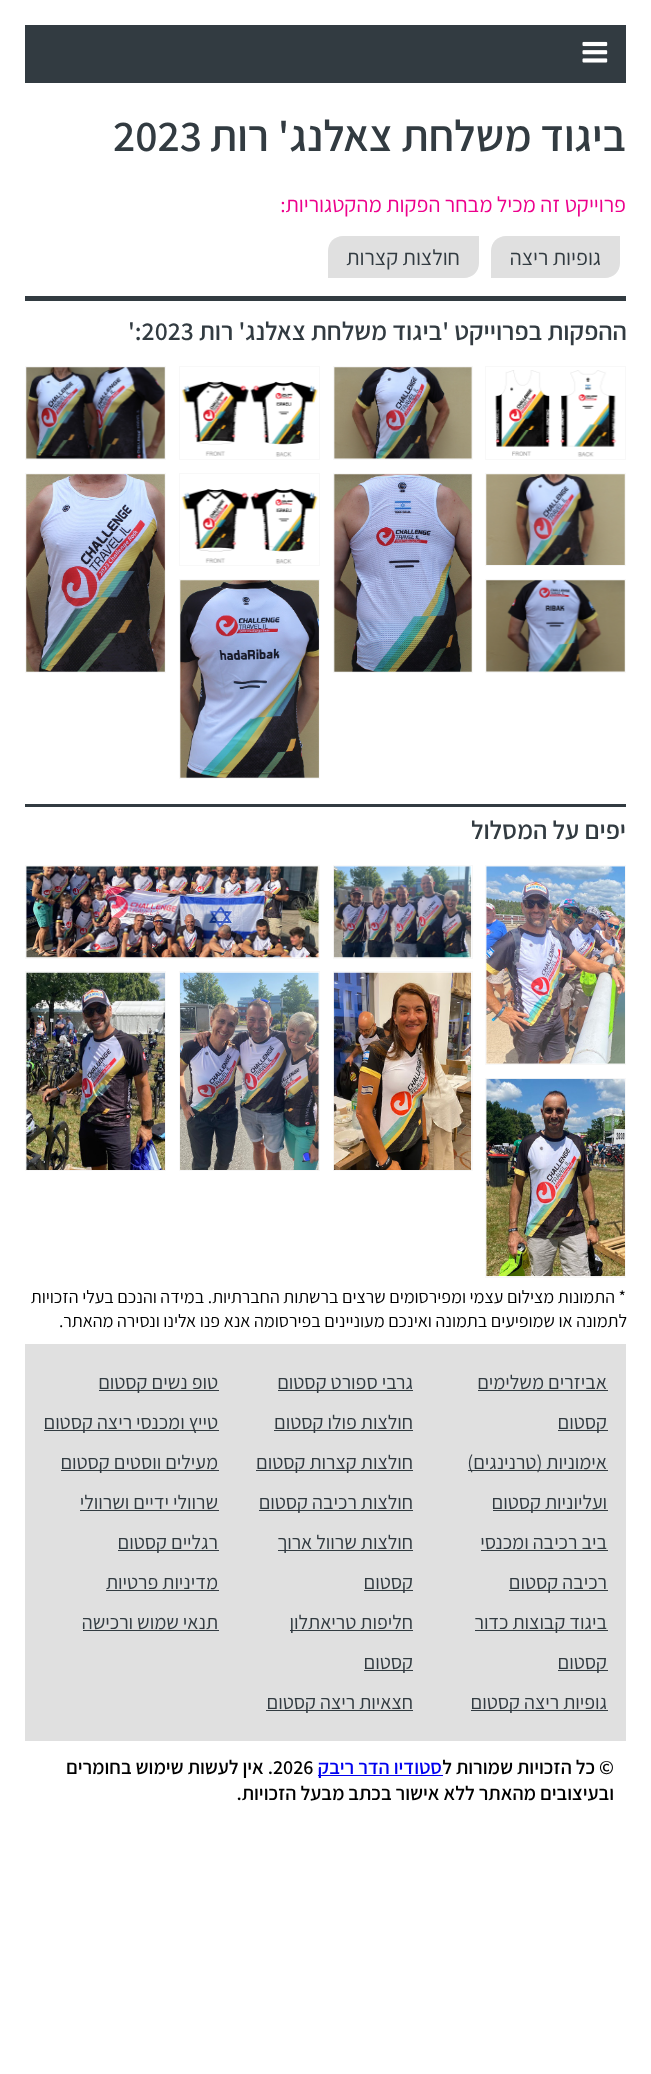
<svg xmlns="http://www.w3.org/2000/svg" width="651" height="2074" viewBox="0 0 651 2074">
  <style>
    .t1 { font: 600 44px Assistant; direction: rtl; fill: #323b41; }
    .t2 { font: 600 44px Assistant; fill: #323b41; }
    .t3 { font: 22px Assistant; direction: rtl; fill: #ed008c; }
    .t4 { font: 22px Assistant; direction: rtl; fill: #323b41; }
    .t5 { font: 600 25.75px Assistant; direction: rtl; fill: #323b41; }
    .t6 { font: 600 25.75px Assistant; fill: #323b41; }
    .t7 { font: 18px Assistant; direction: rtl; fill: #000; }
    .t8 { font: 20px Assistant; direction: rtl; fill: #323b41; }
    .t9 { font: 600 20px Assistant; direction: rtl; fill: #000; }
    .t10 { font: 600 20px Assistant; direction: rtl; fill: #00e; }
    .t11 { font: 600 20px Assistant; fill: #000; }
  </style>
  <rect width="100%" height="100%" fill="#fff"/>
  <rect x="25" y="25" width="601" height="58" fill="#323b41"/>
  <image x="582" y="41" width="26" height="22" href="images/1.png"/>
  <text x="626" y="151" class="t1">ביגוד משלחת צאלנג' רות</text>
  <text x="113" y="151" class="t2">2023</text>
  <text x="626" y="212" class="t3">פרוייקט זה מכיל מבחר הפקות מהקטגוריות:</text>
  <path d="M506 236H620V263C620 271.5 613.5 278 605 278H491V251C491 242.5 497.5 236 506 236Z" fill="#e0e0e0"/>
  <text x="601" y="265" class="t4">גופיות ריצה</text>
  <path d="M343 236H479V263C479 271.5 472.5 278 464 278H328V251C328 242.5 334.5 236 343 236Z" fill="#e0e0e0"/>
  <text x="460" y="265" class="t4">חולצות קצרות</text>
  <rect x="25" y="296" width="601" height="5" fill="#323b41"/>
  <text x="627" y="340" class="t5">ההפקות בפרוייקט 'ביגוד משלחת צאלנג' רות</text>
  <text x="128" y="340" class="t6">':2023</text>
  <rect x="485.5" y="366.5" width="140" height="93" fill="none" stroke="#f8f8f8"/>
  <image x="492" y="370" width="125" height="87" href="images/2.png"/>
  <rect x="333.5" y="366.5" width="139" height="93" fill="none" stroke="#f8f8f8"/>
  <image x="334" y="367" width="138" height="92" href="images/3.png"/>
  <rect x="179.5" y="366.5" width="140" height="93" fill="none" stroke="#f8f8f8"/>
  <image x="181" y="381" width="137" height="76" href="images/4.png"/>
  <rect x="25.5" y="366.5" width="140" height="93" fill="none" stroke="#f8f8f8"/>
  <image x="26" y="367" width="139" height="92" href="images/5.png"/>
  <rect x="485.5" y="473.5" width="140" height="92" fill="none" stroke="#f8f8f8"/>
  <image x="486" y="474" width="139" height="91" href="images/6.png"/>
  <rect x="333.5" y="473.5" width="139" height="199" fill="none" stroke="#f8f8f8"/>
  <image x="333" y="474" width="139" height="198" href="images/7.png"/>
  <rect x="179.5" y="473.5" width="140" height="92" fill="none" stroke="#f8f8f8"/>
  <image x="181" y="488" width="137" height="76" href="images/8.png"/>
  <rect x="25.5" y="473.5" width="140" height="199" fill="none" stroke="#f8f8f8"/>
  <image x="26" y="474" width="139" height="198" href="images/9.png"/>
  <rect x="485.5" y="579.5" width="140" height="93" fill="none" stroke="#f8f8f8"/>
  <image x="486" y="580" width="139" height="92" href="images/10.png"/>
  <rect x="179.5" y="579.5" width="140" height="199" fill="none" stroke="#f8f8f8"/>
  <image x="180" y="580" width="139" height="198" href="images/11.png"/>
  <rect x="25" y="804" width="601" height="3" fill="#323b41"/>
  <text x="626" y="839" class="t5">יפים על המסלול</text>
  <rect x="485.5" y="865.5" width="140" height="199" fill="none" stroke="#f8f8f8"/>
  <image x="486" y="866" width="139" height="198" href="images/12.png"/>
  <rect x="333.5" y="865.5" width="139" height="93" fill="none" stroke="#f8f8f8"/>
  <image x="333" y="866" width="139" height="92" href="images/13.png"/>
  <rect x="25.5" y="865.5" width="294" height="93" fill="none" stroke="#f8f8f8"/>
  <image x="26" y="866" width="293" height="92" href="images/14.png"/>
  <rect x="485.5" y="1078.5" width="140" height="199" fill="none" stroke="#f8f8f8"/>
  <image x="486" y="1078" width="139" height="199" href="images/15.png"/>
  <rect x="333.5" y="971.5" width="139" height="199" fill="none" stroke="#f8f8f8"/>
  <image x="333" y="972" width="139" height="198" href="images/16.png"/>
  <rect x="179.5" y="971.5" width="140" height="199" fill="none" stroke="#f8f8f8"/>
  <image x="180" y="972" width="139" height="198" href="images/17.png"/>
  <rect x="25.5" y="971.5" width="140" height="199" fill="none" stroke="#f8f8f8"/>
  <image x="26" y="972" width="139" height="198" href="images/18.png"/>
  <text x="626" y="1303" class="t7">* התמונות מצילום עצמי ומפירסומים שרצים ברשתות החברתיות. במידה והנכם בעלי הזכויות</text>
  <text x="627" y="1327" class="t7">לתמונה או שמופיעים בתמונה ואינכם מעוניינים בפירסומה אנא פנו אלינו ונסירה מהאתר.</text>
  <rect x="25" y="1344" width="601" height="397" fill="#e0e0e0"/>
  <text x="607" y="1389" class="t8">אביזרים משלימים</text>
  <rect x="478" y="1390" width="130" height="1" fill="#323b41"/>
  <rect x="558" y="1430" width="50" height="1" fill="#323b41"/>
  <text x="607" y="1429" class="t8">קסטום</text>
  <rect x="278" y="1390" width="135" height="1" fill="#323b41"/>
  <text x="413" y="1389" class="t8">גרבי ספורט קסטום</text>
  <rect x="99" y="1390" width="120" height="1" fill="#323b41"/>
  <text x="218" y="1389" class="t8">טופ נשים קסטום</text>
  <rect x="274" y="1430" width="139" height="1" fill="#323b41"/>
  <text x="413" y="1429" class="t8">חולצות פולו קסטום</text>
  <rect x="44" y="1430" width="175" height="1" fill="#323b41"/>
  <text x="218" y="1429" class="t8">טייץ ומכנסי ריצה קסטום</text>
  <rect x="468" y="1470" width="140" height="1" fill="#323b41"/>
  <text x="607" y="1469" class="t8">אימוניות (טרנינגים)</text>
  <rect x="493" y="1510" width="115" height="1" fill="#323b41"/>
  <text x="607" y="1509" class="t8">ועליוניות קסטום</text>
  <rect x="256" y="1470" width="157" height="1" fill="#323b41"/>
  <text x="413" y="1469" class="t8">חולצות קצרות קסטום</text>
  <rect x="61" y="1470" width="158" height="1" fill="#323b41"/>
  <text x="218" y="1469" class="t8">מעילים ווסטים קסטום</text>
  <rect x="259" y="1510" width="154" height="1" fill="#323b41"/>
  <text x="413" y="1509" class="t8">חולצות רכיבה קסטום</text>
  <text x="218" y="1509" class="t8">שרוולי ידיים ושרוולי</text>
  <rect x="80" y="1510" width="139" height="1" fill="#323b41"/>
  <rect x="118" y="1550" width="101" height="1" fill="#323b41"/>
  <text x="218" y="1549" class="t8">רגליים קסטום</text>
  <text x="607" y="1549" class="t8">ביב רכיבה ומכנסי</text>
  <rect x="481" y="1550" width="127" height="1" fill="#323b41"/>
  <rect x="509" y="1590" width="99" height="1" fill="#323b41"/>
  <text x="607" y="1589" class="t8">רכיבה קסטום</text>
  <rect x="278" y="1550" width="135" height="1" fill="#323b41"/>
  <text x="413" y="1549" class="t8">חולצות שרוול ארוך</text>
  <rect x="364" y="1590" width="49" height="1" fill="#323b41"/>
  <text x="413" y="1589" class="t8">קסטום</text>
  <text x="218" y="1589" class="t8">מדיניות פרטיות</text>
  <rect x="106" y="1590" width="113" height="1" fill="#323b41"/>
  <rect x="475" y="1630" width="133" height="1" fill="#323b41"/>
  <text x="607" y="1629" class="t8">ביגוד קבוצות כדור</text>
  <rect x="558" y="1670" width="50" height="1" fill="#323b41"/>
  <text x="607" y="1669" class="t8">קסטום</text>
  <rect x="290" y="1630" width="123" height="1" fill="#323b41"/>
  <text x="413" y="1629" class="t8">חליפות טריאתלון</text>
  <rect x="364" y="1670" width="49" height="1" fill="#323b41"/>
  <text x="413" y="1669" class="t8">קסטום</text>
  <text x="218" y="1629" class="t8">תנאי שמוש ורכישה</text>
  <rect x="83" y="1630" width="136" height="1" fill="#323b41"/>
  <rect x="471" y="1710" width="137" height="1" fill="#323b41"/>
  <text x="607" y="1709" class="t8">גופיות ריצה קסטום</text>
  <rect x="266" y="1710" width="147" height="1" fill="#323b41"/>
  <text x="413" y="1709" class="t8">חצאיות ריצה קסטום</text>
  <text x="614" y="1774" class="t9">© כל הזכויות שמורות ל</text>
  <rect x="318" y="1775" width="125" height="1" fill="#00e"/>
  <text x="442" y="1774" class="t10">סטודיו הדר ריבק</text>
  <text x="273" y="1774" class="t11">2026</text>
  <text x="273" y="1774" class="t9">. אין לעשות שימוש בחומרים</text>
  <text x="614" y="1800" class="t9">ובעיצובים מהאתר ללא אישור בכתב מבעל הזכויות.</text>
</svg>
